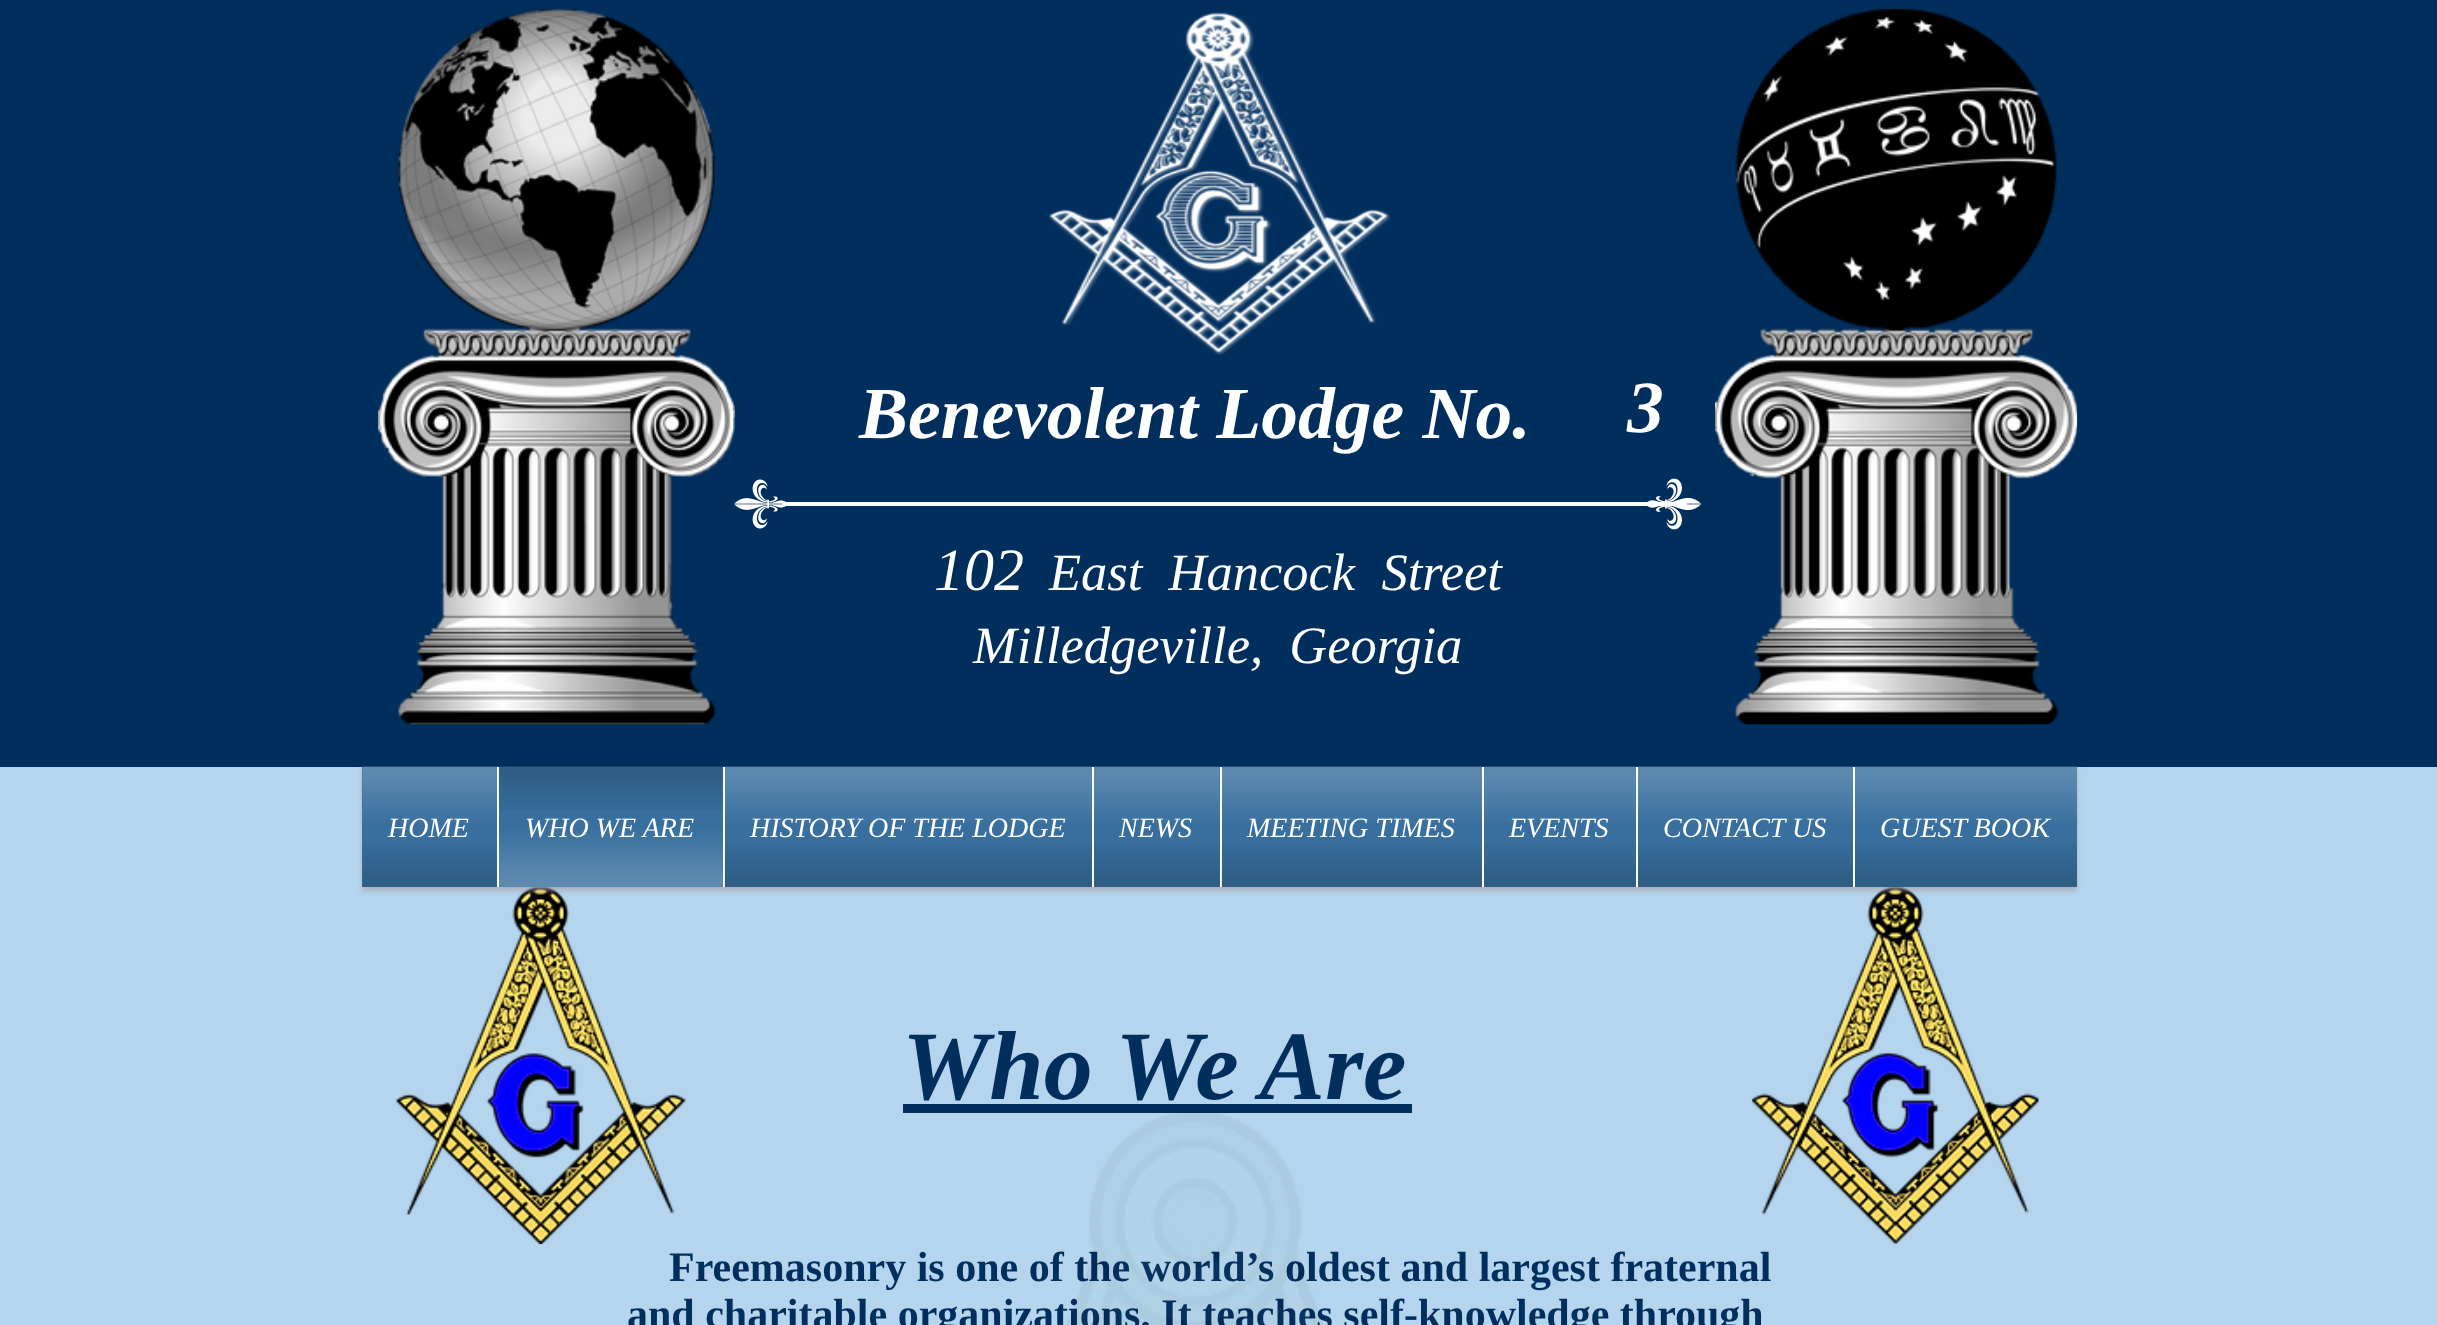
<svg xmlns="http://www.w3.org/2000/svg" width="2437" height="1325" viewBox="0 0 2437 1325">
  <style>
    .t1 { font: italic bold 73.5px Liberation Serif; fill: #fff; }
    .t2 { font: italic 60px Liberation Serif; fill: #fff; }
    .t3 { font: italic 52.5px Liberation Serif; fill: #fff; }
    .t4 { font: italic 28px Liberation Serif; fill: #fff; }
    .t5 { font: italic bold 98px Liberation Serif; fill: #002e5d; }
    .t6 { font: bold 42px Liberation Serif; fill: #002e5d; }
  </style>
  <rect width="100%" height="100%" fill="#b4d5ed"/>
  <rect x="0" y="0" width="2437" height="767" fill="#002e5d"/>
  <image x="378" y="9" width="357" height="716" href="images/1.png"/>
  <image x="1049" y="12" width="342" height="343" href="images/2.png"/>
  <image x="1715" y="8" width="363" height="717" href="images/3.png"/>
  <text x="859" y="438" class="t1">Benevolent Lodge No.</text>
  <text x="1627" y="432" class="t1">3</text>
  <rect x="782" y="502" width="905" height="4" fill="#fff"/>
  <image x="734" y="479" width="52" height="50" href="images/4.png"/>
  <image x="1647" y="478" width="54" height="52" href="images/5.png"/>
  <text x="934" y="590" class="t2">102</text>
  <text x="1049" y="590" class="t3" xml:space="preserve">East  Hancock  Street</text>
  <text x="973" y="663" class="t3" xml:space="preserve">Milledgeville,  Georgia</text>
  <image x="395" y="887" width="291" height="358" href="images/23.png"/>
  <image x="1751" y="887" width="288" height="358" href="images/24.png"/>
  <rect x="362" y="770" width="1715" height="121" fill="#a29e9e99" filter="blur(2.5px)"/>
  <image x="362" y="766" width="1716" height="35" href="images/6.png"/>
  <rect x="362" y="767" width="135" height="120" fill="#386f9e"/>
  <text x="388" y="837" class="t4">HOME</text>
  <image x="362" y="766" width="135" height="57" href="images/7.png"/>
  <image x="362" y="843" width="135" height="44" href="images/8.png"/>
  <rect x="499" y="767" width="224" height="120" fill="#386f9e"/>
  <rect x="497" y="767" width="2" height="120" fill="#fff"/>
  <image x="498" y="766" width="225" height="44" href="images/9.png"/>
  <text x="525" y="837" class="t4">WHO WE ARE</text>
  <image x="499" y="830" width="224" height="57" href="images/10.png"/>
  <rect x="725" y="767" width="367" height="120" fill="#386f9e"/>
  <rect x="723" y="767" width="2" height="120" fill="#fff"/>
  <text x="750" y="837" class="t4">HISTORY OF THE LODGE</text>
  <image x="724" y="766" width="368" height="57" href="images/11.png"/>
  <image x="724" y="843" width="368" height="44" href="images/12.png"/>
  <rect x="1094" y="767" width="126" height="120" fill="#386f9e"/>
  <rect x="1092" y="767" width="2" height="120" fill="#fff"/>
  <text x="1119" y="837" class="t4">NEWS</text>
  <image x="1094" y="766" width="126" height="57" href="images/13.png"/>
  <image x="1093" y="843" width="127" height="44" href="images/14.png"/>
  <rect x="1222" y="767" width="260" height="120" fill="#386f9e"/>
  <rect x="1220" y="767" width="2" height="120" fill="#fff"/>
  <text x="1247" y="837" class="t4">MEETING TIMES</text>
  <image x="1221" y="766" width="261" height="57" href="images/15.png"/>
  <image x="1221" y="843" width="261" height="44" href="images/16.png"/>
  <rect x="1484" y="767" width="152" height="120" fill="#386f9e"/>
  <rect x="1482" y="767" width="2" height="120" fill="#fff"/>
  <text x="1509" y="837" class="t4">EVENTS</text>
  <image x="1484" y="766" width="152" height="57" href="images/17.png"/>
  <image x="1484" y="843" width="152" height="44" href="images/18.png"/>
  <rect x="1638" y="767" width="215" height="120" fill="#386f9e"/>
  <rect x="1636" y="767" width="2" height="120" fill="#fff"/>
  <text x="1663" y="837" class="t4">CONTACT US</text>
  <image x="1638" y="766" width="215" height="57" href="images/19.png"/>
  <image x="1638" y="843" width="215" height="44" href="images/20.png"/>
  <rect x="1855" y="767" width="222" height="120" fill="#386f9e"/>
  <rect x="1853" y="767" width="2" height="120" fill="#fff"/>
  <text x="1880" y="837" class="t4">GUEST BOOK</text>
  <image x="1855" y="766" width="222" height="57" href="images/21.png"/>
  <image x="1855" y="843" width="222" height="44" href="images/22.png"/>
  <text x="902" y="1099" class="t5">Who We Are</text>
  <rect x="903" y="1104" width="509" height="9" fill="#002e5d"/>
  <text x="669" y="1281" class="t6">Freemasonry is one of the world’s oldest and largest fraternal</text>
  <text x="627" y="1328" class="t6">and charitable organizations. It teaches self-knowledge through</text>
  <image x="1067" y="1112" width="256" height="213" href="images/25.png"/>
</svg>
